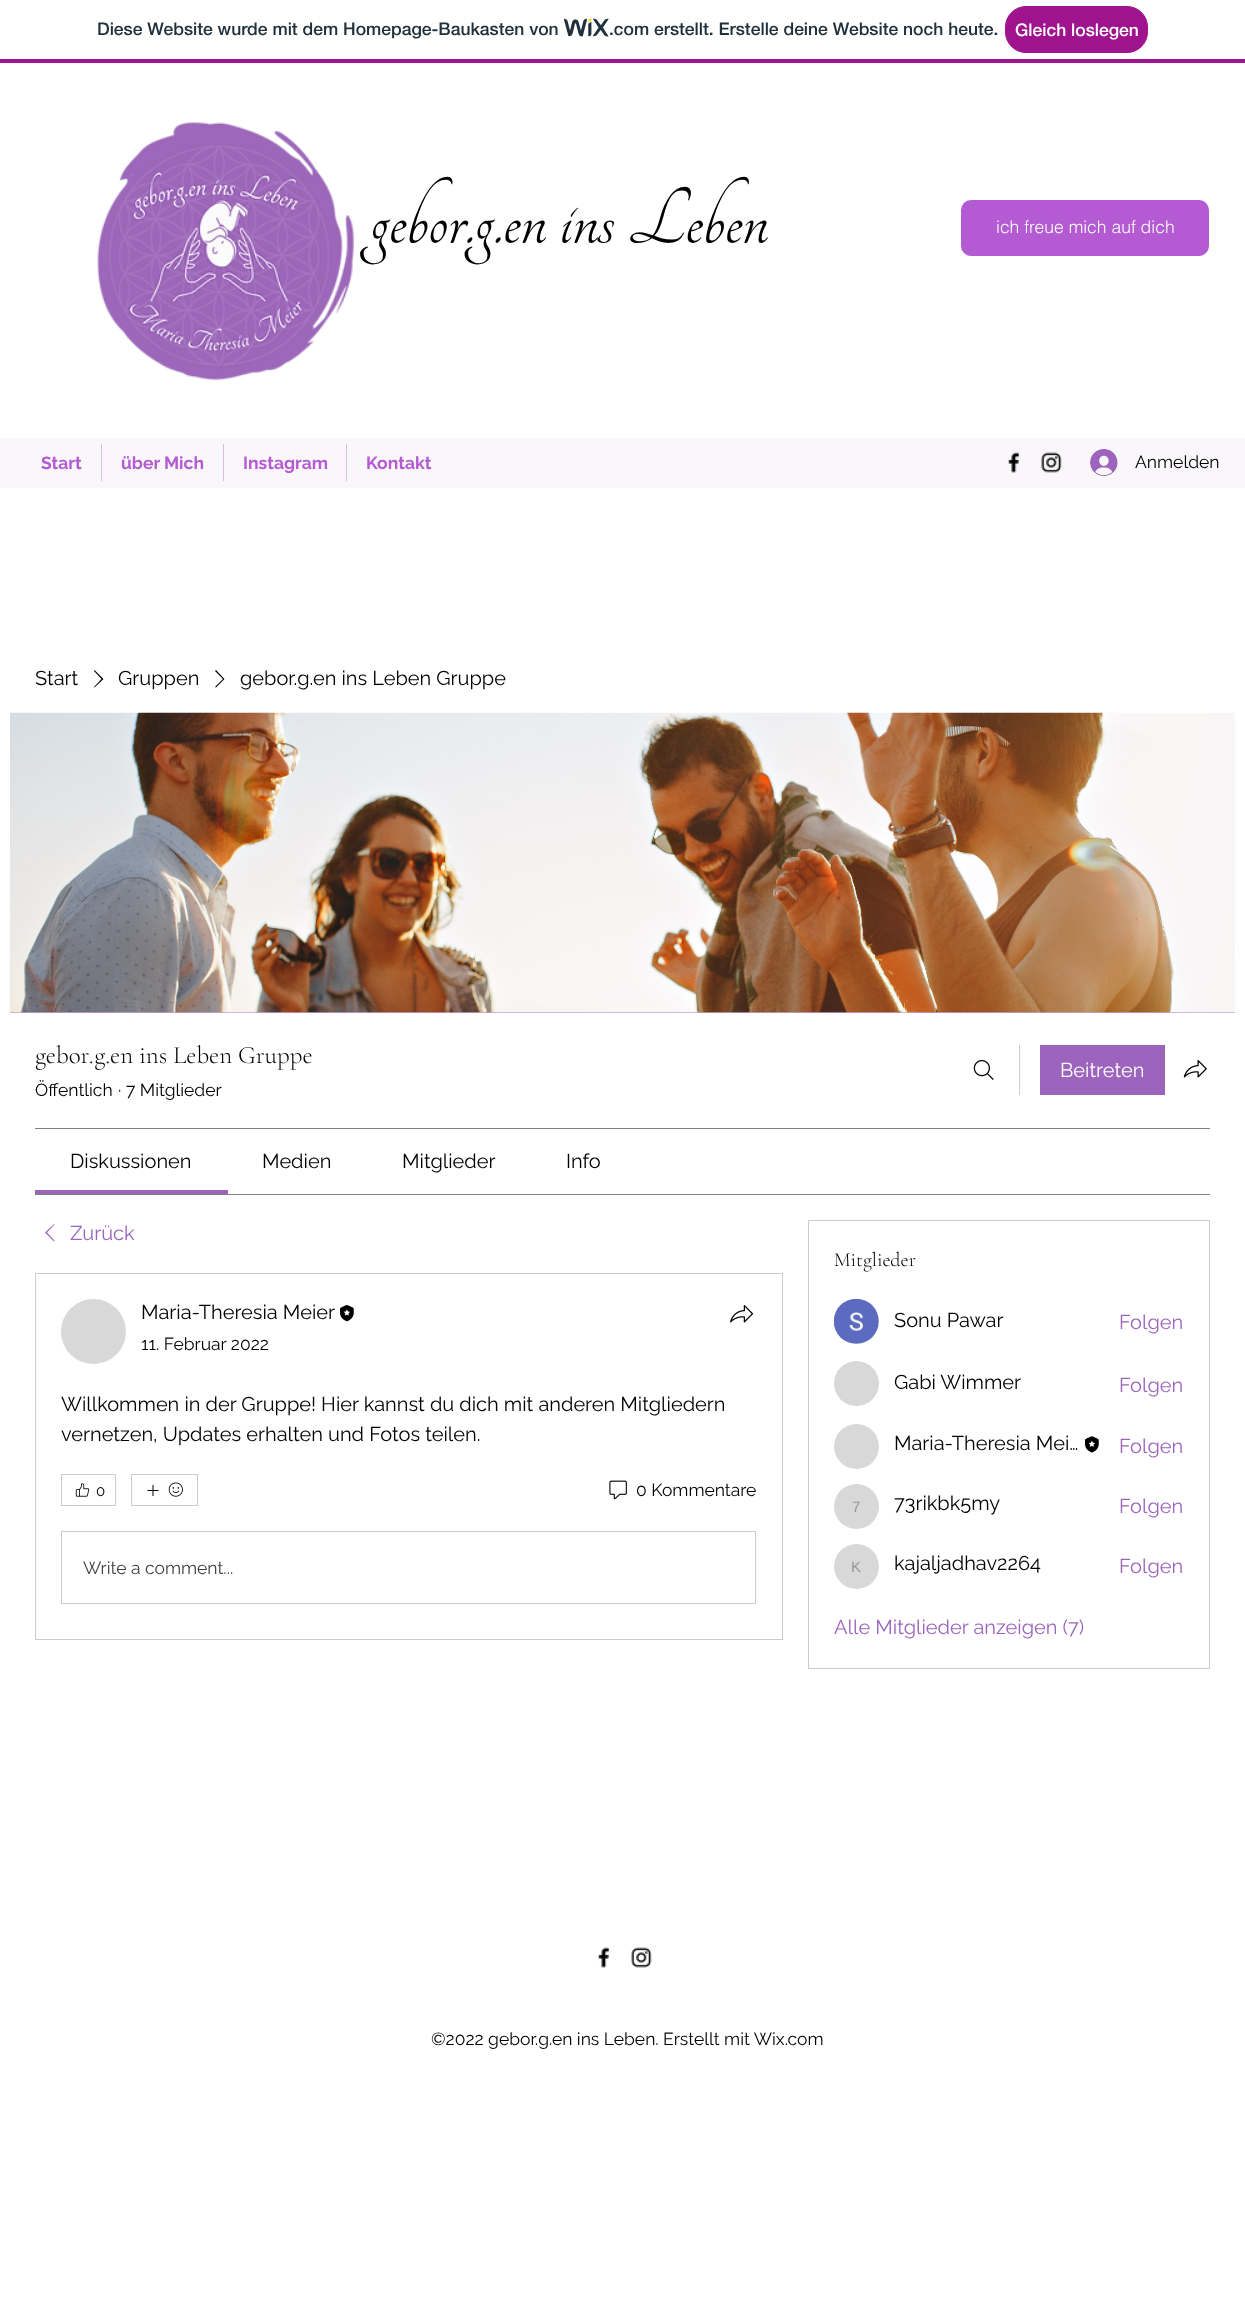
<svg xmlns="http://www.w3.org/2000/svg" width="1245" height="2315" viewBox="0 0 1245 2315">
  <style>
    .t1 { font: 500 17.5px 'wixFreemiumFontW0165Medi'; fill: #20303c; }
    .t2 { font: 500 17.5px 'wixFreemiumFontW0165Medi'; fill: #fff; }
    .t3 { font: 87.5px Tangerine; fill: #000; }
    .t4 { font: 300 17.5px helvetica; fill: #fff; }
    .t5 { font: bold 17.5px Raleway; fill: #b45ad3; }
    .t6 { font: 17.5px Raleway; fill: #000; }
    .t7 { font: 20px Raleway; fill: #000; }
    .t8 { font: 300 25px Cormorant Garamond; fill: #000; }
    .t9 { font: 20px Raleway; fill: #fff; }
    .t10 { font: 20px Raleway; fill: #9c64bc; }
    .t11 { font: 15px Raleway; fill: #000; }
    .t12 { font: 17.5px Raleway; fill: #404040; }
    .t13 { font: 300 20px Cormorant Garamond; fill: #000; }
    .t14 { font: 15px Liberation Sans; fill: #979797; }
  </style>
  <rect width="100%" height="100%" fill="#fff"/>
  <rect x="0" y="59" width="1245" height="4" fill="#a0138e"/>
  <text x="97" y="35" class="t1">Diese Website wurde mit dem Homepage-Baukasten von</text>
  <image x="564" y="18" width="45" height="19" href="images/1.png"/>
  <text x="609" y="35" class="t1">.com erstellt. Erstelle deine Website noch heute.</text>
  <rect x="1005.5" y="6.5" width="142" height="46" rx="20.5" fill="#a0138e" stroke="#a0138e"/>
  <text x="1015" y="36" class="t2">Gleich loslegen</text>
  <image x="97" y="122" width="257" height="259" href="images/2.png"/>
  <text x="370" y="243" class="t3">gebor.g.en ins Leben</text>
  <rect x="961" y="200" width="248" height="56" rx="10" fill="#b45ad3"/>
  <text x="996" y="233" class="t4">ich freue mich auf dich</text>
  <rect x="0" y="438" width="1245" height="50" fill="#f9f7fa"/>
  <text x="41" y="469" class="t5">Start</text>
  <rect x="101" y="444" width="1" height="37" fill="#d8bde2"/>
  <text x="121" y="469" class="t5">über Mich</text>
  <rect x="223" y="444" width="1" height="37" fill="#d8bde2"/>
  <text x="243" y="469" class="t5">Instagram</text>
  <rect x="346" y="444" width="1" height="37" fill="#d8bde2"/>
  <text x="366" y="469" class="t5">Kontakt</text>
  <image x="1008" y="452" width="12" height="21" href="images/3.png"/>
  <image x="1041" y="452" width="21" height="21" href="images/4.png"/>
  <image x="1090" y="449" width="28" height="27" href="images/5.png"/>
  <text x="1135" y="468" class="t6">Anmelden</text>
  <text x="35" y="685" class="t7">Start</text>
  <path d="M94.5 670L103.5 679L94.5 687.5L94 687L101.5 679L94 671Z" fill="#000" fill-rule="evenodd"/>
  <text x="118" y="685" class="t7">Gruppen</text>
  <path d="M216 670L224.5 679L216 687.5L215 687L223 679L215 671Z" fill="#000" fill-rule="evenodd"/>
  <text x="240" y="685" class="t7">gebor.g.en ins Leben Gruppe</text>
  <rect x="10" y="1012" width="1225" height="1" fill="#c4a2d7"/>
  <image x="10" y="712" width="1225" height="301" href="images/6.png"/>
  <text x="35" y="1063" class="t8">gebor.g.en ins Leben Gruppe</text>
  <text x="35" y="1096" class="t6">Öffentlich</text>
  <text x="118" y="1096" class="t6">·</text>
  <text x="126" y="1096" class="t6">7 Mitglieder</text>
  <image x="973" y="1060" width="21" height="20" href="images/7.png"/>
  <rect x="1019" y="1045" width="1" height="50" fill="#ccc"/>
  <rect x="1040" y="1045" width="125" height="50" fill="#9c64bc"/>
  <text x="1060" y="1077" class="t9">Beitreten</text>
  <image x="1183" y="1060" width="24" height="18" href="images/8.png"/>
  <rect x="35" y="1128" width="1175" height="1" fill="#808080"/>
  <rect x="35" y="1194" width="1175" height="1" fill="#808080"/>
  <rect x="35" y="1190" width="193" height="4" fill="#9c64bc"/>
  <text x="70" y="1168" class="t7">Diskussionen</text>
  <text x="262" y="1168" class="t7">Medien</text>
  <text x="402" y="1168" class="t7">Mitglieder</text>
  <text x="566" y="1168" class="t7">Info</text>
  <path d="M54 1224L54.5 1224.5L47 1232.5L54.5 1240.5L54 1241.5L45 1232.5Z" fill="#9c64bc" fill-rule="evenodd"/>
  <text x="70" y="1240" class="t10">Zurück</text>
  <rect x="35.5" y="1273.5" width="747" height="366" fill="none" stroke="#ccc"/>
  <circle cx="93.5" cy="1331.5" r="32.5" fill="#d8d8d8"/>
  <text x="141" y="1319" class="t7">Maria-Theresia Meier</text>
  <image x="340" y="1305" width="14" height="17" href="images/9.png"/>
  <text x="141" y="1350" class="t6">11. Februar 2022</text>
  <image x="730" y="1305" width="24" height="18" href="images/10.png"/>
  <text x="61" y="1411" class="t7">Willkommen in der Gruppe! Hier kannst du dich mit anderen Mitgliedern</text>
  <text x="61" y="1441" class="t7">vernetzen, Updates erhalten und Fotos teilen.</text>
  <rect x="61.5" y="1474.5" width="54" height="31" fill="none" stroke="#ccc"/>
  <image x="75" y="1483" width="15" height="14" href="images/11.png"/>
  <text x="96" y="1496" class="t11">0</text>
  <rect x="131.5" y="1474.5" width="66" height="31" fill="none" stroke="#ccc"/>
  <image x="147" y="1485" width="12" height="11" href="images/12.png"/>
  <image x="168" y="1482" width="15" height="15" href="images/13.png"/>
  <image x="609" y="1480" width="18" height="20" href="images/14.png"/>
  <text x="636" y="1496" class="t6">0 Kommentare</text>
  <rect x="61.5" y="1531.5" width="694" height="72" fill="none" stroke="#ccc"/>
  <text x="83" y="1574" class="t12">Write a comment...</text>
  <rect x="808.5" y="1220.5" width="401" height="448" fill="none" stroke="#ccc"/>
  <text x="834" y="1266" class="t13">Mitglieder</text>
  <circle cx="856.5" cy="1321.5" r="22.5" fill="#d8d8d8"/>
  <image x="833" y="1298" width="46" height="46" href="images/15.png"/>
  <text x="894" y="1327" class="t7">Sonu Pawar</text>
  <text x="1119" y="1329" class="t10">Folgen</text>
  <circle cx="856.5" cy="1383.5" r="22.5" fill="#d8d8d8"/>
  <text x="894" y="1389" class="t7">Gabi Wimmer</text>
  <text x="1119" y="1392" class="t10">Folgen</text>
  <circle cx="856.5" cy="1446.5" r="22.5" fill="#d8d8d8"/>
  <text x="894" y="1450" class="t7">Maria-Theresia Mei…</text>
  <image x="1085" y="1436" width="14" height="17" href="images/16.png"/>
  <text x="1119" y="1453" class="t10">Folgen</text>
  <circle cx="856.5" cy="1506.5" r="22.5" fill="#d8d8d8"/>
  <text x="852" y="1512" class="t14">7</text>
  <text x="894" y="1510" class="t7">73rikbk5my</text>
  <text x="1119" y="1513" class="t10">Folgen</text>
  <circle cx="856.5" cy="1566.5" r="22.5" fill="#d8d8d8"/>
  <text x="851" y="1572" class="t14">K</text>
  <text x="894" y="1570" class="t7">kajaljadhav2264</text>
  <text x="1119" y="1573" class="t10">Folgen</text>
  <text x="834" y="1634" class="t10">Alle Mitglieder anzeigen (7)</text>
  <image x="598" y="1947" width="12" height="21" href="images/17.png"/>
  <image x="631" y="1947" width="21" height="21" href="images/18.png"/>
  <text x="431" y="2045" class="t6">©2022 gebor.g.en ins Leben. Erstellt mit Wix.com</text>
</svg>
